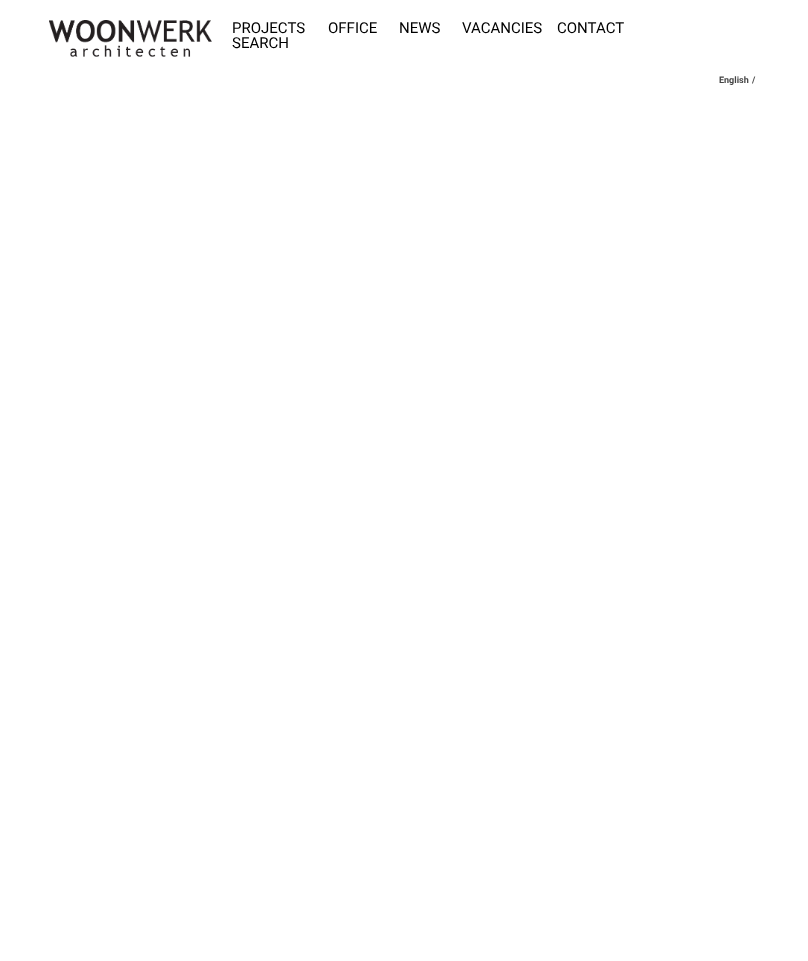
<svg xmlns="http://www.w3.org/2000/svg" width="808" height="961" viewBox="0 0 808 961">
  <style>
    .t1 { font: 15px Roboto; fill: #000; }
    .t2 { font: bold 9px Roboto; fill: #444; }
  </style>
  <rect width="100%" height="100%" fill="#fff"/>
  <image x="49" y="20" width="163" height="37" href="images/1.png"/>
  <text x="232" y="33" class="t1">PROJECTS</text>
  <text x="328" y="33" class="t1">OFFICE</text>
  <text x="399" y="33" class="t1">NEWS</text>
  <text x="462" y="33" class="t1">VACANCIES</text>
  <text x="557" y="33" class="t1">CONTACT</text>
  <text x="232" y="48" class="t1">SEARCH</text>
  <text x="719" y="83" class="t2">English</text>
  <text x="752" y="83" class="t2">/</text>
</svg>
